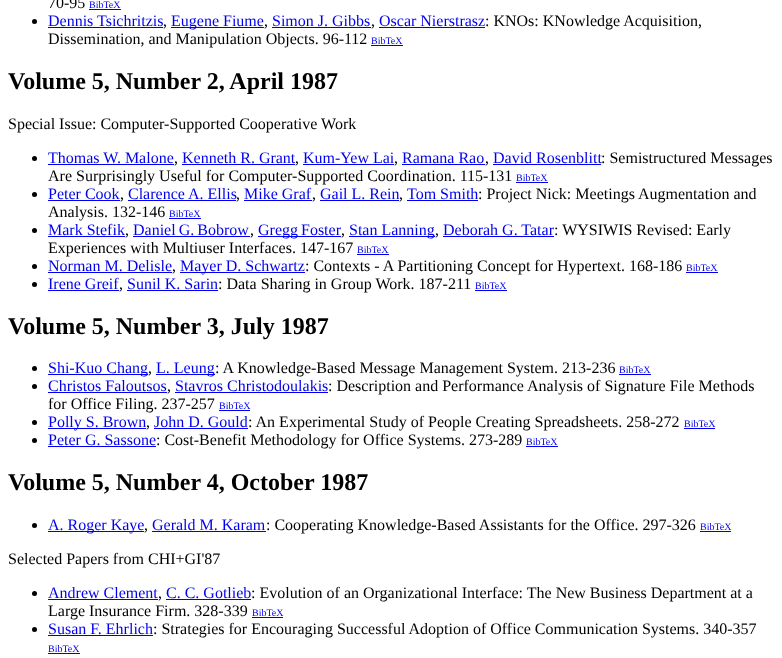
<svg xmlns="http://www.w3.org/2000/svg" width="782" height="658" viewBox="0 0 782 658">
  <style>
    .t1 { font: 16px Liberation Serif; fill: #000; }
    .t2 { font: 10px Liberation Serif; fill: #00e; }
    .t3 { font: 16px Liberation Serif; fill: #00e; }
    .t4 { font: bold 24px Liberation Serif; fill: #000; }
  </style>
  <rect width="100%" height="100%" fill="#fff"/>
  <text x="48" y="8" class="t1">70-95</text>
  <text x="89" y="8" class="t2">BibTeX</text>
  <rect x="89" y="9" width="32" height="1" fill="#00e"/>
  <circle cx="34.5" cy="21.5" r="2.5" fill="#000"/>
  <text x="48" y="26" class="t3">Dennis Tsichritzis</text>
  <rect x="48" y="27" width="115" height="1" fill="#00e"/>
  <rect x="171" y="27" width="93" height="1" fill="#00e"/>
  <text x="171" y="26" class="t3">Eugene Fiume</text>
  <text x="272" y="26" class="t3">Simon J. Gibbs</text>
  <rect x="272" y="27" width="99" height="1" fill="#00e"/>
  <text x="379" y="26" class="t3">Oscar Nierstrasz</text>
  <rect x="379" y="27" width="106" height="1" fill="#00e"/>
  <text x="485" y="26" class="t1">: KNOs: KNowledge Acquisition,</text>
  <text x="163" y="26" class="t1">,</text>
  <text x="264" y="26" class="t1">,</text>
  <text x="371" y="26" class="t1">,</text>
  <text x="48" y="44" class="t1">Dissemination, and Manipulation Objects. 96-112</text>
  <text x="371" y="44" class="t2">BibTeX</text>
  <rect x="371" y="45" width="32" height="1" fill="#00e"/>
  <text x="8" y="89" class="t4">Volume 5, Number 2, April 1987</text>
  <text x="8" y="129" class="t1">Special Issue: Computer-Supported Cooperative Work</text>
  <circle cx="34.5" cy="158.5" r="2.5" fill="#000"/>
  <text x="48" y="163" class="t3">Thomas W. Malone</text>
  <rect x="48" y="164" width="126" height="1" fill="#00e"/>
  <text x="182" y="163" class="t3">Kenneth R. Grant</text>
  <rect x="182" y="164" width="113" height="1" fill="#00e"/>
  <text x="303" y="163" class="t3">Kum-Yew Lai</text>
  <rect x="303" y="164" width="91" height="1" fill="#00e"/>
  <text x="402" y="163" class="t3">Ramana Rao</text>
  <rect x="402" y="164" width="83" height="1" fill="#00e"/>
  <text x="493" y="163" class="t3">David Rosenblitt</text>
  <rect x="493" y="164" width="108" height="1" fill="#00e"/>
  <text x="601" y="163" class="t1">: Semistructured Messages</text>
  <text x="174" y="163" class="t1">,</text>
  <text x="295" y="163" class="t1">,</text>
  <text x="394" y="163" class="t1">,</text>
  <text x="485" y="163" class="t1">,</text>
  <text x="48" y="181" class="t1">Are Surprisingly Useful for Computer-Supported Coordination. 115-131</text>
  <text x="516" y="181" class="t2">BibTeX</text>
  <rect x="516" y="182" width="32" height="1" fill="#00e"/>
  <circle cx="34.5" cy="194.5" r="2.5" fill="#000"/>
  <text x="48" y="199" class="t3">Peter Cook</text>
  <rect x="48" y="200" width="72" height="1" fill="#00e"/>
  <text x="128" y="199" class="t3">Clarence A. Ellis</text>
  <rect x="128" y="200" width="108" height="1" fill="#00e"/>
  <text x="244" y="199" class="t3">Mike Graf</text>
  <rect x="244" y="200" width="68" height="1" fill="#00e"/>
  <text x="320" y="199" class="t3">Gail L. Rein</text>
  <rect x="320" y="200" width="79" height="1" fill="#00e"/>
  <text x="407" y="199" class="t3">Tom Smith</text>
  <rect x="407" y="200" width="71" height="1" fill="#00e"/>
  <text x="478" y="199" class="t1">: Project Nick: Meetings Augmentation and</text>
  <text x="120" y="199" class="t1">,</text>
  <text x="236" y="199" class="t1">,</text>
  <text x="312" y="199" class="t1">,</text>
  <text x="399" y="199" class="t1">,</text>
  <text x="48" y="217" class="t1">Analysis. 132-146</text>
  <text x="169" y="217" class="t2">BibTeX</text>
  <rect x="169" y="218" width="32" height="1" fill="#00e"/>
  <circle cx="34.5" cy="230.5" r="2.5" fill="#000"/>
  <text x="48" y="235" class="t3">Mark Stefik</text>
  <rect x="48" y="236" width="77" height="1" fill="#00e"/>
  <text x="133" y="235" word-spacing="-1" class="t3">Daniel G. Bobrow</text>
  <rect x="133" y="236" width="117" height="1" fill="#00e"/>
  <rect x="258" y="236" width="83" height="1" fill="#00e"/>
  <text x="258" y="235" word-spacing="-1" class="t3">Gregg Foster</text>
  <rect x="349" y="236" width="86" height="1" fill="#00e"/>
  <text x="349" y="235" class="t3">Stan Lanning</text>
  <text x="443" y="235" class="t3">Deborah G. Tatar</text>
  <rect x="443" y="236" width="111" height="1" fill="#00e"/>
  <text x="554" y="235" class="t1">: WYSIWIS Revised: Early</text>
  <text x="125" y="235" class="t1">,</text>
  <text x="250" y="235" class="t1">,</text>
  <text x="341" y="235" class="t1">,</text>
  <text x="435" y="235" class="t1">,</text>
  <text x="48" y="253" class="t1">Experiences with Multiuser Interfaces. 147-167</text>
  <text x="357" y="253" class="t2">BibTeX</text>
  <rect x="357" y="254" width="32" height="1" fill="#00e"/>
  <circle cx="34.5" cy="266.5" r="2.5" fill="#000"/>
  <text x="48" y="271" class="t3">Norman M. Delisle</text>
  <rect x="48" y="272" width="124" height="1" fill="#00e"/>
  <text x="172" y="271" class="t1">,</text>
  <rect x="180" y="272" width="125" height="1" fill="#00e"/>
  <text x="180" y="271" class="t3">Mayer D. Schwartz</text>
  <text x="305" y="271" class="t1">: Contexts - A Partitioning Concept for Hypertext. 168-186</text>
  <text x="686" y="271" class="t2">BibTeX</text>
  <rect x="686" y="272" width="32" height="1" fill="#00e"/>
  <circle cx="34.5" cy="284.5" r="2.5" fill="#000"/>
  <text x="48" y="289" class="t3">Irene Greif</text>
  <rect x="48" y="290" width="71" height="1" fill="#00e"/>
  <text x="119" y="289" class="t1">,</text>
  <text x="127" y="289" class="t3">Sunil K. Sarin</text>
  <rect x="127" y="290" width="91" height="1" fill="#00e"/>
  <text x="218" y="289" class="t1">: Data Sharing in Group Work. 187-211</text>
  <text x="475" y="289" class="t2">BibTeX</text>
  <rect x="475" y="290" width="32" height="1" fill="#00e"/>
  <text x="8" y="334" class="t4">Volume 5, Number 3, July 1987</text>
  <circle cx="34.5" cy="368.5" r="2.5" fill="#000"/>
  <rect x="48" y="374" width="100" height="1" fill="#00e"/>
  <text x="48" y="373" class="t3">Shi-Kuo Chang</text>
  <text x="148" y="373" class="t1">,</text>
  <rect x="156" y="374" width="59" height="1" fill="#00e"/>
  <text x="156" y="373" class="t3">L. Leung</text>
  <text x="215" y="373" class="t1">: A Knowledge-Based Message Management System. 213-236</text>
  <text x="619" y="373" class="t2">BibTeX</text>
  <rect x="619" y="374" width="32" height="1" fill="#00e"/>
  <circle cx="34.5" cy="386.5" r="2.5" fill="#000"/>
  <text x="48" y="391" class="t3">Christos Faloutsos</text>
  <rect x="48" y="392" width="119" height="1" fill="#00e"/>
  <text x="175" y="391" class="t3">Stavros Christodoulakis</text>
  <rect x="175" y="392" width="153" height="1" fill="#00e"/>
  <text x="328" y="391" class="t1">: Description and Performance Analysis of Signature File Methods</text>
  <text x="167" y="391" class="t1">,</text>
  <text x="48" y="409" class="t1">for Office Filing. 237-257</text>
  <text x="219" y="409" class="t2">BibTeX</text>
  <rect x="219" y="410" width="31" height="1" fill="#00e"/>
  <circle cx="34.5" cy="422.5" r="2.5" fill="#000"/>
  <rect x="48" y="428" width="98" height="1" fill="#00e"/>
  <text x="48" y="427" class="t3">Polly S. Brown</text>
  <text x="146" y="427" class="t1">,</text>
  <text x="154" y="427" class="t3">John D. Gould</text>
  <rect x="154" y="428" width="94" height="1" fill="#00e"/>
  <text x="248" y="427" class="t1">: An Experimental Study of People Creating Spreadsheets. 258-272</text>
  <text x="684" y="427" class="t2">BibTeX</text>
  <rect x="684" y="428" width="31" height="1" fill="#00e"/>
  <circle cx="34.5" cy="440.5" r="2.5" fill="#000"/>
  <text x="48" y="445" class="t3">Peter G. Sassone</text>
  <rect x="48" y="446" width="108" height="1" fill="#00e"/>
  <text x="156" y="445" class="t1">: Cost-Benefit Methodology for Office Systems. 273-289</text>
  <text x="526" y="445" class="t2">BibTeX</text>
  <rect x="526" y="446" width="32" height="1" fill="#00e"/>
  <text x="8" y="490" class="t4">Volume 5, Number 4, October 1987</text>
  <circle cx="34.5" cy="525.5" r="2.5" fill="#000"/>
  <rect x="48" y="531" width="96" height="1" fill="#00e"/>
  <text x="48" y="530" class="t3">A. Roger Kaye</text>
  <text x="144" y="530" class="t1">,</text>
  <text x="152" y="530" class="t3">Gerald M. Karam</text>
  <rect x="152" y="531" width="114" height="1" fill="#00e"/>
  <text x="266" y="530" class="t1">: Cooperating Knowledge-Based Assistants for the Office. 297-326</text>
  <text x="700" y="530" class="t2">BibTeX</text>
  <rect x="700" y="531" width="31" height="1" fill="#00e"/>
  <text x="8" y="564" class="t1">Selected Papers from CHI+GI'87</text>
  <circle cx="34.5" cy="593.5" r="2.5" fill="#000"/>
  <text x="48" y="598" class="t3">Andrew Clement</text>
  <rect x="48" y="599" width="110" height="1" fill="#00e"/>
  <text x="166" y="598" class="t3">C. C. Gotlieb</text>
  <rect x="166" y="599" width="85" height="1" fill="#00e"/>
  <text x="251" y="598" class="t1">: Evolution of an Organizational Interface: The New Business Department at a</text>
  <text x="158" y="598" class="t1">,</text>
  <text x="48" y="616" class="t1">Large Insurance Firm. 328-339</text>
  <text x="252" y="616" class="t2">BibTeX</text>
  <rect x="252" y="617" width="31" height="1" fill="#00e"/>
  <circle cx="34.5" cy="629.5" r="2.5" fill="#000"/>
  <text x="48" y="634" class="t3">Susan F. Ehrlich</text>
  <rect x="48" y="635" width="105" height="1" fill="#00e"/>
  <text x="153" y="634" class="t1">: Strategies for Encouraging Successful Adoption of Office Communication Systems. 340-357</text>
  <text x="48" y="652" class="t2">BibTeX</text>
  <rect x="48" y="653" width="32" height="1" fill="#00e"/>
</svg>
